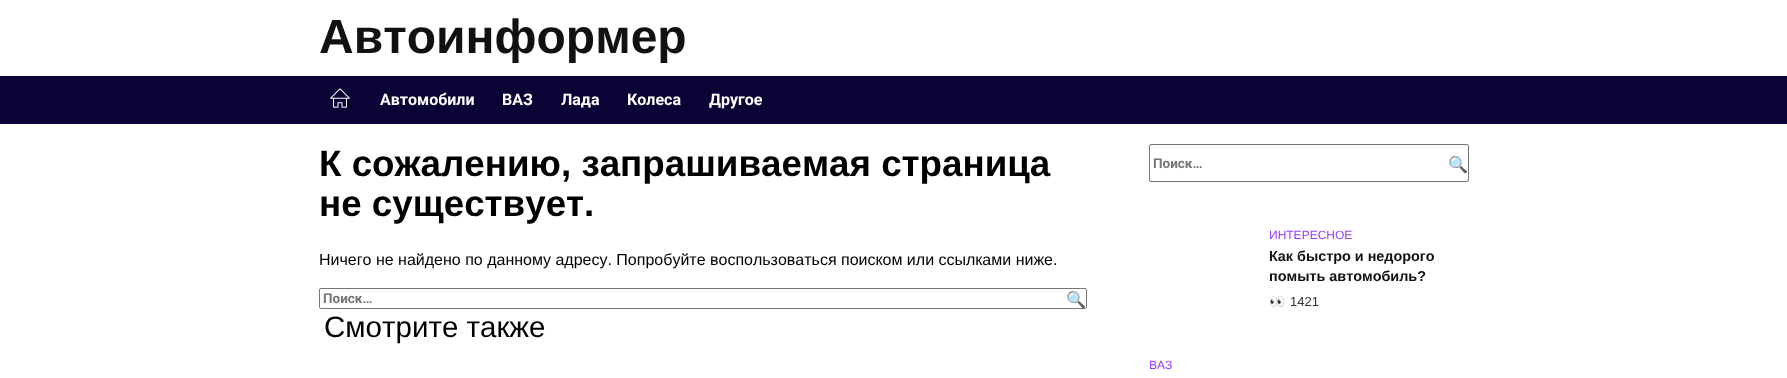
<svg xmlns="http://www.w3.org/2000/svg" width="1787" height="378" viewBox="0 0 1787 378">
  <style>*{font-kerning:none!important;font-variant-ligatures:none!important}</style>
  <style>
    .t1 { font: bold 48px Liberation Sans; fill: #111; }
    .t2 { font: bold 16px Roboto; fill: #fff; }
    .t3 { font: bold 36.75px Liberation Sans; fill: #000; }
    .t4 { font: 16px Liberation Sans; fill: #000; }
    .t5 { font: bold 13.5px Roboto; fill: #757575; }
    .t6 { font: 16px Noto Color Emoji; fill: #000; }
    .t7 { font: 29.5px Liberation Sans; fill: #000; }
    .t8 { font: 12px Liberation Sans; fill: #9839fe; }
    .t9 { font: bold 14.4px Liberation Sans; fill: #111; }
    .t10 { font: 13px Noto Color Emoji; fill: #ad61fe; }
    .t11 { font: 13px Liberation Sans; fill: #333; }
  </style>
  <rect width="100%" height="100%" fill="#fff"/>
  <rect x="0" y="75" width="1787" height="1" fill="#f2f5f9"/>
  <text x="319" y="53" class="t1">Автоинформер</text>
  <rect x="0" y="76" width="1787" height="48" fill="#0b0335"/>
  <image x="330" y="88" width="20" height="20" href="images/1.png"/>
  <text x="380" y="105" class="t2">Автомобили</text>
  <text x="502" y="105" class="t2">ВАЗ</text>
  <text x="561" y="105" class="t2">Лада</text>
  <text x="627" y="105" class="t2">Колеса</text>
  <text x="709" y="105" class="t2">Другое</text>
  <text x="319" y="176" class="t3">К сожалению, запрашиваемая страница</text>
  <text x="319" y="216" class="t3">не существует.</text>
  <text x="319" y="265" class="t4">Ничего не найдено по данному адресу. Попробуйте воспользоваться поиском или ссылками ниже.</text>
  <rect x="319.5" y="288.5" width="767" height="20" rx="1.5" fill="none" stroke="#767676"/>
  <text x="323" y="303" class="t5">Поиск…</text>
  <text x="1066" y="305" class="t6">🔍</text>
  <text x="324" y="337" class="t7">Смотрите также</text>
  <rect x="1149.5" y="144.5" width="319" height="37" rx="1.5" fill="none" stroke="#767676"/>
  <text x="1153" y="168" class="t5">Поиск…</text>
  <text x="1448" y="170" class="t6">🔍</text>
  <text x="1269" y="239" class="t8">ИНТЕРЕСНОЕ</text>
  <text x="1269" y="261" class="t9">Как быстро и недорого</text>
  <text x="1269" y="281" class="t9">помыть автомобиль?</text>
  <text x="1269" y="306" class="t10">👀</text>
  <text x="1290" y="306" class="t11">1421</text>
  <text x="1149" y="369" class="t8">ВАЗ</text>
</svg>
